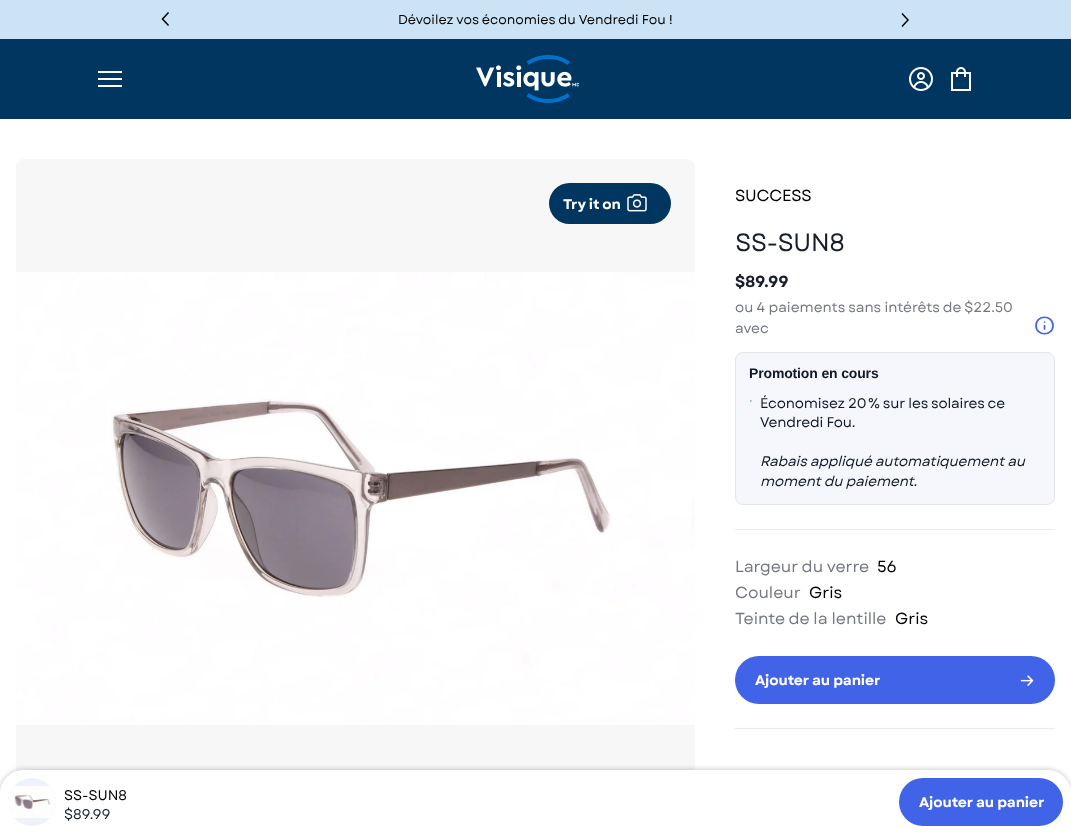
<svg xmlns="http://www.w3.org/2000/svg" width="1071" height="834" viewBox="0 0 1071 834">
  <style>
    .t1 { font: 13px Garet; fill: #000; }
    .t2 { font: bold 14px 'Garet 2'; letter-spacing: -0.1px; fill: #fff; }
    .t3 { font: 16px Garet; letter-spacing: -0.25px; fill: #000; }
    .t4 { font: bold 24px Garet; fill: #181e2b; }
    .t5 { font: bold 16px 'Garet 2'; fill: #181e2b; }
    .t6 { font: 14px Garet; fill: #747880; }
    .t7 { font: bold 14px Liberation Sans; letter-spacing: -0.15px; fill: #111827; }
    .t8 { font: 14px Garet; letter-spacing: -0.15px; fill: #111827; }
    .t9 { font: italic 14px Garet; letter-spacing: -0.15px; fill: #111827; }
    .t10 { font: 16px Garet; fill: #747880; }
    .t11 { font: 16px Garet; fill: #000; }
    .t12 { font: 14px Garet; fill: #000; }
    .t13 { font: 14px Garet; fill: #181e2b; }
  </style>
  <rect width="100%" height="100%" fill="#fff"/>
  <rect x="0" y="0" width="1071" height="39" fill="#cce3f5"/>
  <path d="M168.5 12.5L162.5 19L168.5 25.5" fill="none" stroke="#000" stroke-width="1.5"/>
  <text x="398" y="24" class="t1">Dévoilez vos économies du Vendredi Fou !</text>
  <path d="M902 26.5L908 20L902 13.5" fill="none" stroke="#000" stroke-width="1.5"/>
  <rect x="0" y="39" width="1071" height="80" fill="#003660"/>
  <rect x="98" y="78" width="24" height="2" fill="#fff"/>
  <rect x="98" y="71" width="24" height="2" fill="#fff"/>
  <rect x="98" y="85" width="24" height="2" fill="#fff"/>
  <image x="476" y="55" width="103" height="48" href="images/1.png"/>
  <image x="909" y="67" width="24" height="24" href="images/2.png"/>
  <image x="951" y="67" width="20" height="24" href="images/3.png"/>
  <rect x="16" y="159" width="679" height="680" rx="8" fill="#f7f7f7"/>
  <image x="16" y="272" width="679" height="453" href="images/4.png"/>
  <rect x="549" y="183" width="122" height="41" rx="20.5" fill="#003660"/>
  <text x="563" y="209" class="t2">Try it on</text>
  <image x="627" y="194" width="20" height="18" href="images/5.png"/>
  <text x="735" y="201" class="t3">SUCCESS</text>
  <text x="735" y="251" class="t4">SS-SUN8</text>
  <text x="735" y="287" class="t5">$89.99</text>
  <text x="735" y="312" class="t6">ou 4 paiements sans intérêts de $22.50</text>
  <text x="735" y="333" class="t6">avec</text>
  <path d="M1044.5 329V325.5M1044.5 322H1044.5M1053 325.5C1053 336.5 1036 336.5 1036 325.5C1036 314.5 1053 314.5 1053 325.5Z" fill="none" stroke="#4063e7" stroke-width="1.7" stroke-linecap="round" stroke-linejoin="round"/>
  <rect x="735.5" y="352.5" width="319" height="152" rx="7.5" fill="#afbbeb1f" stroke="#e5e5e7"/>
  <text x="749" y="378" class="t7">Promotion en cours</text>
  <circle cx="750.9" cy="400.9" r="0.6" fill="#006b5c"/>
  <text x="760" y="408" class="t8">Économisez 20 % sur les solaires ce</text>
  <text x="760" y="427" class="t8">Vendredi Fou.</text>
  <text x="760" y="466" class="t9">Rabais appliqué automatiquement au</text>
  <text x="760" y="486" class="t9">moment du paiement.</text>
  <rect x="735" y="529" width="320" height="1" fill="#e6eaf9"/>
  <text x="735" y="572" class="t10">Largeur du verre</text>
  <text x="877" y="572" class="t11">56</text>
  <text x="735" y="598" class="t10">Couleur</text>
  <text x="809" y="598" class="t11">Gris</text>
  <text x="735" y="624" class="t10">Teinte de la lentille</text>
  <text x="895" y="624" class="t11">Gris</text>
  <rect x="735" y="656" width="320" height="48" rx="24" fill="#4063e7"/>
  <text x="755" y="685" class="t2">Ajouter au panier</text>
  <image x="1020" y="675" width="14" height="11" href="images/6.png"/>
  <rect x="735" y="728" width="320" height="1" fill="#e6eaf9"/>
  <rect x="0" y="769" width="1071" height="64" rx="24" fill="#00000030" filter="blur(2.5px)"/>
  <path d="M24 770H1047C1060.5 770 1071 780.5 1071 794V834H0V794C0 780.5 10.5 770 24 770Z" fill="#fff"/>
  <circle cx="32" cy="802" r="24" fill="#f0f2fb"/>
  <image x="8" y="786" width="48" height="32" href="images/7.png"/>
  <text x="64" y="800" class="t12">SS-SUN8</text>
  <text x="64" y="819" class="t13">$89.99</text>
  <rect x="899" y="778" width="164" height="48" rx="24" fill="#4063e7"/>
  <text x="919" y="807" class="t2">Ajouter au panier</text>
</svg>
